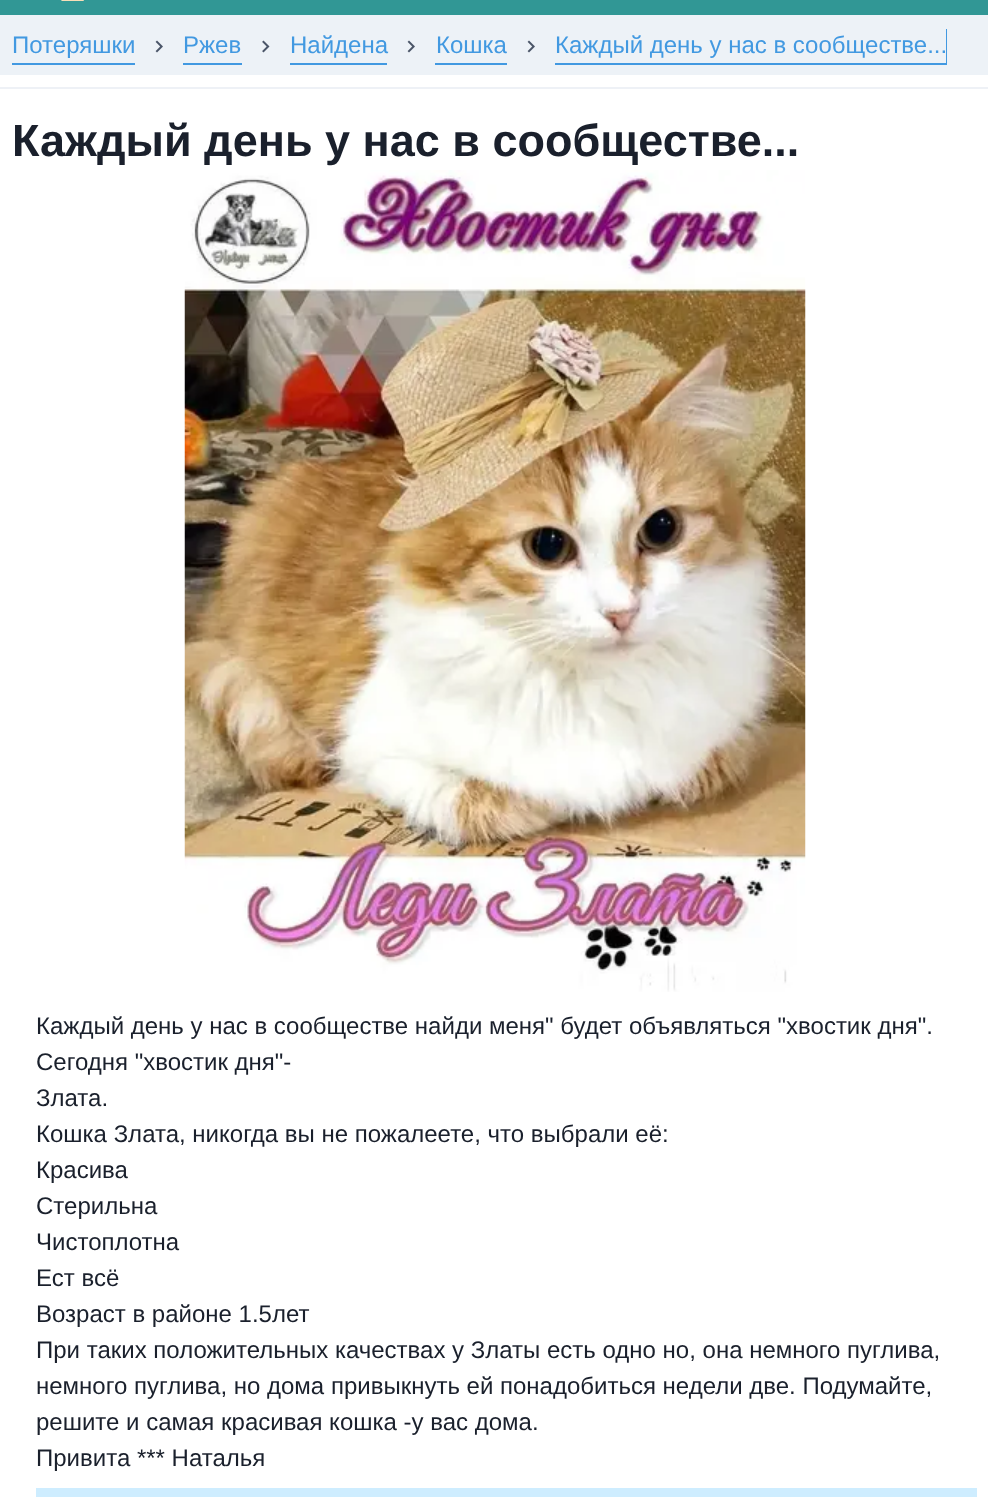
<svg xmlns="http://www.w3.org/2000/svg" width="988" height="1497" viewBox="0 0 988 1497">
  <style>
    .t1 { font: 24px Liberation Sans; fill: #4299e1; }
    .t2 { font: bold 45px Liberation Sans; fill: #1a202c; }
    .t3 { font: 24px Liberation Sans; fill: #1a202c; }
  </style>
  <rect width="100%" height="100%" fill="#fff"/>
  <rect x="0" y="0" width="988" height="15" fill="#319795"/>
  <image x="61" y="0" width="23" height="1" href="images/1.png"/>
  <rect x="0" y="15" width="988" height="60" fill="#edf2f7"/>
  <rect x="12" y="63" width="123" height="2" fill="#4299e1"/>
  <text x="12" y="53" class="t1">Потеряшки</text>
  <image x="155" y="40" width="8" height="13" href="images/2.png"/>
  <path d="M183 63V65H242V29V63Z" fill="#4299e1"/>
  <text x="183" y="53" class="t1">Ржев</text>
  <image x="262" y="40" width="8" height="13" href="images/3.png"/>
  <rect x="290" y="63" width="97" height="2" fill="#4299e1"/>
  <text x="290" y="53" class="t1">Найдена</text>
  <image x="407" y="40" width="8" height="13" href="images/2.png"/>
  <rect x="435" y="63" width="72" height="2" fill="#4299e1"/>
  <text x="436" y="53" class="t1">Кошка</text>
  <image x="527" y="40" width="8" height="13" href="images/2.png"/>
  <path d="M555 63V65H947V29H946V63Z" fill="#4299e1"/>
  <text x="555" y="53" class="t1">Каждый день у нас в сообществе...</text>
  <rect x="0" y="87" width="988" height="2" fill="#eef1f6"/>
  <text x="12" y="156" class="t2">Каждый день у нас в сообществе...</text>
  <image x="184" y="170" width="622" height="822" href="images/4.png"/>
  <text x="36" y="1034" class="t3">Каждый день у нас в сообществе найди меня" будет объявляться "хвостик дня".</text>
  <text x="36" y="1070" class="t3">Сегодня "хвостик дня"-</text>
  <text x="36" y="1106" class="t3">Злата.</text>
  <text x="36" y="1142" class="t3">Кошка Злата, никогда вы не пожалеете, что выбрали её:</text>
  <text x="36" y="1178" class="t3">Красива</text>
  <text x="36" y="1214" class="t3">Стерильна</text>
  <text x="36" y="1250" class="t3">Чистоплотна</text>
  <text x="36" y="1286" class="t3">Ест всё</text>
  <text x="36" y="1322" class="t3">Возраст в районе 1.5лет</text>
  <text x="36" y="1358" class="t3">При таких положительных качествах у Златы есть одно но, она немного пуглива,</text>
  <text x="36" y="1394" class="t3">немного пуглива, но дома привыкнуть ей понадобиться недели две. Подумайте,</text>
  <text x="36" y="1430" class="t3">решите и самая красивая кошка -у вас дома.</text>
  <text x="36" y="1466" class="t3">Привита *** Наталья</text>
  <rect x="36" y="1488" width="941" height="9" fill="#ceedff"/>
</svg>
